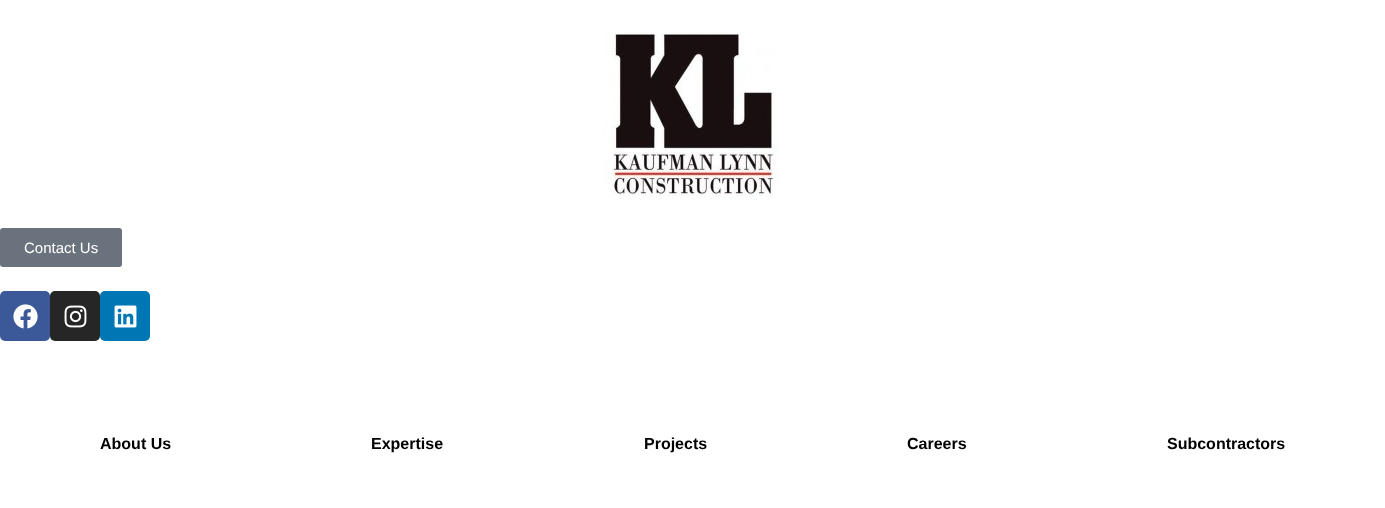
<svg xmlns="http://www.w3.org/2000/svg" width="1385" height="508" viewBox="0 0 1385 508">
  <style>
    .t1 { font: 15px Liberation Sans; fill: #fff; }
    .t2 { font: bold 16px Liberation Sans; fill: #000; }
  </style>
  <rect width="100%" height="100%" fill="#fff"/>
  <image x="603" y="32" width="176" height="168" href="images/1.png"/>
  <rect x="0" y="228" width="122" height="39" rx="3" fill="#69727d"/>
  <text x="24" y="253" class="t1">Contact Us</text>
  <rect x="0" y="291" width="50" height="50" rx="5" fill="#3b5998"/>
  <image x="13" y="304" width="25" height="25" href="images/2.png"/>
  <rect x="50" y="291" width="50" height="50" rx="5" fill="#262626"/>
  <image x="64" y="305" width="23" height="23" href="images/3.png"/>
  <rect x="100" y="291" width="50" height="50" rx="5" fill="#0077b5"/>
  <image x="114" y="305" width="23" height="23" href="images/4.png"/>
  <text x="100" y="449" class="t2">About Us</text>
  <text x="371" y="449" class="t2">Expertise</text>
  <text x="644" y="449" class="t2">Projects</text>
  <text x="907" y="449" class="t2">Careers</text>
  <text x="1167" y="449" class="t2">Subcontractors</text>
</svg>
